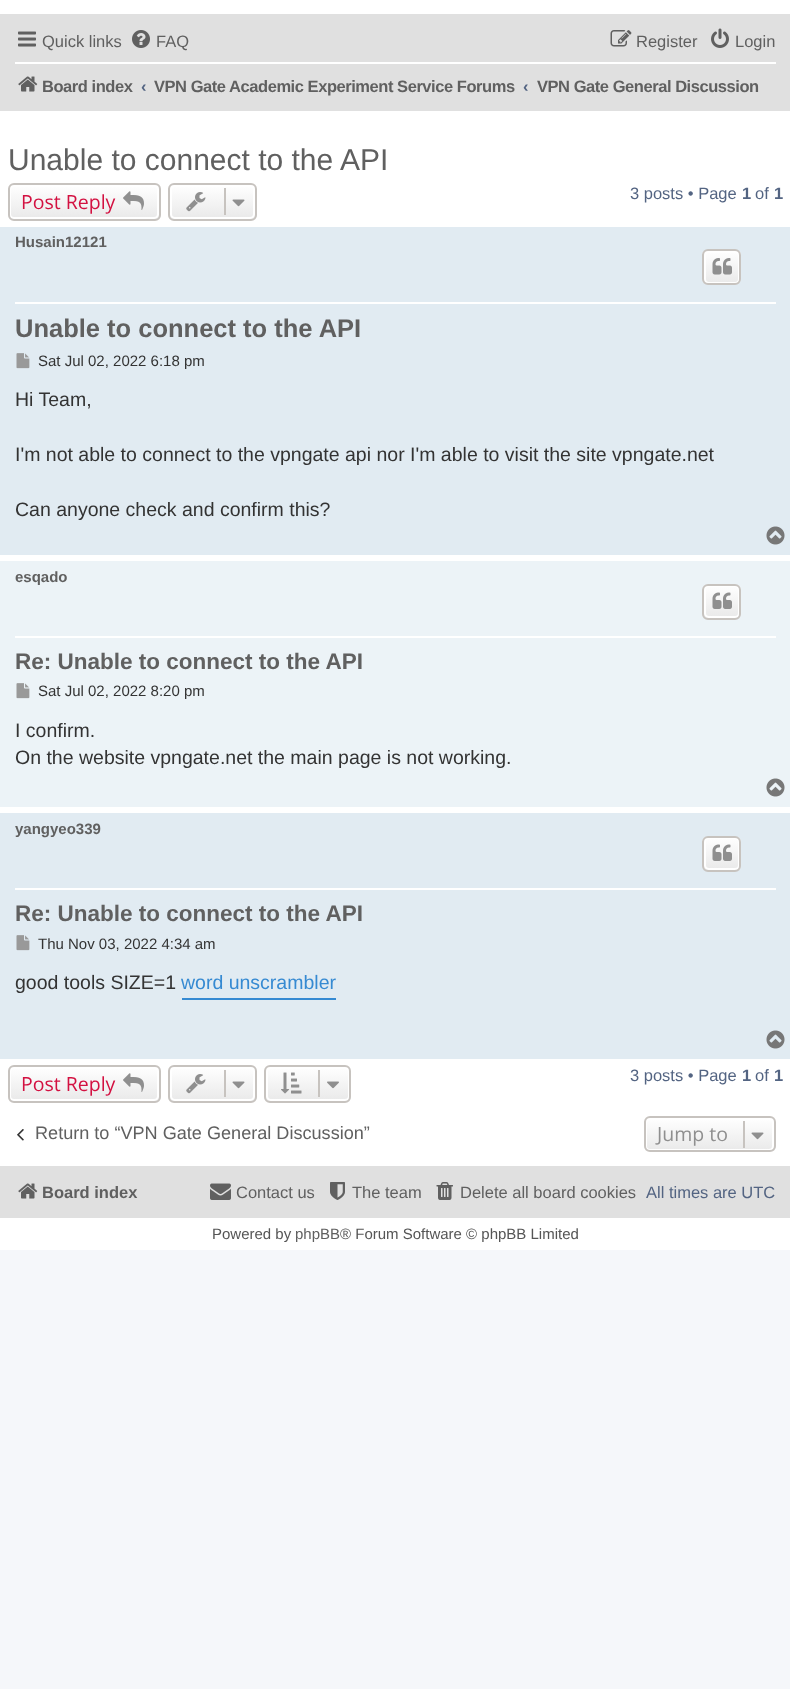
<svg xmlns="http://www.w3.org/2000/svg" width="790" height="1689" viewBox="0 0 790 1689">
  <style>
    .t1 { font: 16.5px Liberation Sans; fill: #606060; }
    .t2 { font: bold 16.5px Liberation Sans; letter-spacing: -0.45px; fill: #606060; }
    .t3 { font: bold 16.5px Liberation Sans; fill: #536482; }
    .t4 { font: 30px Liberation Sans; fill: #606060; }
    .t5 { font: 19.5px Open Sans; fill: #d31141; }
    .t6 { font: 16.5px Liberation Sans; fill: #536482; }
    .t7 { font: bold 15px Liberation Sans; fill: #606060; }
    .t8 { font: bold 25.5px Liberation Sans; fill: #606060; }
    .t9 { font: 15px Liberation Sans; fill: #333; }
    .t10 { font: 19.5px Liberation Sans; fill: #333; }
    .t11 { font: bold 22.5px Liberation Sans; fill: #606060; }
    .t12 { font: 19.5px Liberation Sans; fill: #368ad2; }
    .t13 { font: 18.1px Liberation Sans; fill: #606060; }
    .t14 { font: 19.5px Open Sans; fill: #8f8f8f; }
    .t15 { font: bold 16.5px Liberation Sans; fill: #606060; }
    .t16 { font: 15px Liberation Sans; fill: #555; }
    .t17 { font: 15px Liberation Sans; fill: #606060; }
  </style>
  <defs>
    <clipPath id="clip1"><rect x="8" y="183" width="153" height="38" rx="6"/></clipPath>
    <linearGradient id="g1" gradientUnits="userSpaceOnUse" x1="84" y1="185" x2="84" y2="219"><stop offset="0" stop-color="#fff"/><stop offset="1" stop-color="#e9e9e9"/></linearGradient>
    <clipPath id="clip2"><rect x="168" y="183" width="89" height="38" rx="6"/></clipPath>
    <linearGradient id="g2" gradientUnits="userSpaceOnUse" x1="212" y1="185" x2="212" y2="219"><stop offset="0" stop-color="#fff"/><stop offset="1" stop-color="#e9e9e9"/></linearGradient>
    <clipPath id="clip3"><rect x="702" y="249" width="39" height="36" rx="6"/></clipPath>
    <linearGradient id="g3" gradientUnits="userSpaceOnUse" x1="722" y1="251" x2="722" y2="284"><stop offset="0" stop-color="#fff"/><stop offset="1" stop-color="#e9e9e9"/></linearGradient>
    <clipPath id="clip4"><rect x="702" y="584" width="39" height="36" rx="6"/></clipPath>
    <linearGradient id="g4" gradientUnits="userSpaceOnUse" x1="722" y1="585" x2="722" y2="618"><stop offset="0" stop-color="#fff"/><stop offset="1" stop-color="#e9e9e9"/></linearGradient>
    <clipPath id="clip5"><rect x="702" y="836" width="39" height="36" rx="6"/></clipPath>
    <linearGradient id="g5" gradientUnits="userSpaceOnUse" x1="722" y1="837" x2="722" y2="870"><stop offset="0" stop-color="#fff"/><stop offset="1" stop-color="#e9e9e9"/></linearGradient>
    <clipPath id="clip6"><rect x="8" y="1065" width="153" height="38" rx="6"/></clipPath>
    <linearGradient id="g6" gradientUnits="userSpaceOnUse" x1="84" y1="1067" x2="84" y2="1101"><stop offset="0" stop-color="#fff"/><stop offset="1" stop-color="#e9e9e9"/></linearGradient>
    <clipPath id="clip7"><rect x="168" y="1065" width="89" height="38" rx="6"/></clipPath>
    <linearGradient id="g7" gradientUnits="userSpaceOnUse" x1="212" y1="1067" x2="212" y2="1101"><stop offset="0" stop-color="#fff"/><stop offset="1" stop-color="#e9e9e9"/></linearGradient>
    <clipPath id="clip8"><rect x="264" y="1065" width="87" height="38" rx="6"/></clipPath>
    <linearGradient id="g8" gradientUnits="userSpaceOnUse" x1="308" y1="1067" x2="308" y2="1101"><stop offset="0" stop-color="#fff"/><stop offset="1" stop-color="#e9e9e9"/></linearGradient>
    <clipPath id="clip9"><rect x="644" y="1116" width="132" height="36" rx="6"/></clipPath>
    <linearGradient id="g9" gradientUnits="userSpaceOnUse" x1="710" y1="1118" x2="710" y2="1151"><stop offset="0" stop-color="#fff"/><stop offset="1" stop-color="#e9e9e9"/></linearGradient>
  </defs>
  <rect width="100%" height="100%" fill="#f5f7fa"/>
  <rect x="0" y="0" width="790" height="1250" fill="#fff"/>
  <rect x="0" y="14" width="790" height="97" fill="#e0e0e0"/>
  <image x="18" y="31" width="18" height="16" href="images/1.png"/>
  <text x="42" y="47" class="t1">Quick links</text>
  <image x="132" y="30" width="18" height="18" href="images/2.png"/>
  <text x="156" y="47" class="t1">FAQ</text>
  <image x="610" y="30" width="22" height="17" href="images/3.png"/>
  <text x="636" y="47" class="t1">Register</text>
  <image x="711" y="28" width="18" height="20" href="images/4.png"/>
  <text x="735" y="47" class="t1">Login</text>
  <rect x="15" y="62" width="761" height="2" fill="#fff"/>
  <image x="18" y="76" width="20" height="16" href="images/5.png"/>
  <text x="42" y="92" class="t2">Board index</text>
  <text x="141" y="92" class="t3">‹</text>
  <text x="154" y="92" class="t2">VPN Gate Academic Experiment Service Forums</text>
  <text x="523" y="92" class="t3">‹</text>
  <text x="537" y="92" class="t2">VPN Gate General Discussion</text>
  <text x="8" y="170" class="t4">Unable to connect to the API</text>
  <g clip-path="url(#clip1)">
    <rect x="8" y="185" width="153" height="34" fill="url(#g1)"/>
  </g>
  <rect x="10" y="186" width="148" height="32" rx="4" fill="none" stroke="#fff" stroke-width="2"/>
  <rect x="9" y="184" width="151" height="36" rx="5" fill="none" stroke="#c7c3bf" stroke-width="2"/>
  <text x="21" y="209" class="t5">Post Reply</text>
  <image x="123" y="191" width="21" height="19" href="images/6.png"/>
  <g clip-path="url(#clip2)">
    <rect x="168" y="185" width="89" height="34" fill="url(#g2)"/>
  </g>
  <rect x="171" y="186" width="83" height="32" rx="4" fill="none" stroke="#fff" stroke-width="2"/>
  <rect x="169" y="184" width="87" height="36" rx="5" fill="none" stroke="#c7c3bf" stroke-width="2"/>
  <image x="186" y="192" width="20" height="20" href="images/7.png"/>
  <rect x="224" y="188" width="2" height="27" fill="#c7c3bf"/>
  <image x="232" y="199" width="13" height="8" href="images/8.png"/>
  <text x="630" y="199" class="t6">3 posts • Page</text>
  <text x="742" y="199" class="t3">1</text>
  <text x="755" y="199" class="t6">of</text>
  <text x="774" y="199" class="t3">1</text>
  <rect x="0" y="227" width="790" height="328" fill="#e1ebf2"/>
  <rect x="15" y="302" width="761" height="2" fill="#fff"/>
  <text x="15" y="247" class="t7">Husain12121</text>
  <g clip-path="url(#clip3)">
    <rect x="702" y="251" width="39" height="33" fill="url(#g3)"/>
  </g>
  <rect x="705" y="252" width="34" height="31" rx="4" fill="none" stroke="#fff" stroke-width="2"/>
  <rect x="703" y="250" width="37" height="34" rx="5" fill="none" stroke="#c7c3bf" stroke-width="2"/>
  <image x="712" y="258" width="20" height="17" href="images/9.png"/>
  <text x="15" y="337" class="t8">Unable to connect to the API</text>
  <image x="16" y="353" width="14" height="16" href="images/10.png"/>
  <text x="38" y="366" class="t9">Sat Jul 02, 2022 6:18 pm</text>
  <text x="15" y="406" class="t10">Hi Team,</text>
  <text x="15" y="461" class="t10">I'm not able to connect to the vpngate api nor I'm able to visit the site vpngate.net</text>
  <text x="15" y="516" class="t10">Can anyone check and confirm this?</text>
  <image x="766" y="526" width="19" height="19" href="images/11.png"/>
  <rect x="0" y="561" width="790" height="246" fill="#ecf3f7"/>
  <rect x="15" y="636" width="761" height="2" fill="#fff"/>
  <text x="15" y="582" class="t7">esqado</text>
  <g clip-path="url(#clip4)">
    <rect x="702" y="585" width="39" height="33" fill="url(#g4)"/>
  </g>
  <rect x="705" y="586" width="34" height="31" rx="4" fill="none" stroke="#fff" stroke-width="2"/>
  <rect x="703" y="585" width="37" height="34" rx="5" fill="none" stroke="#c7c3bf" stroke-width="2"/>
  <image x="712" y="592" width="20" height="17" href="images/12.png"/>
  <text x="15" y="669" class="t11">Re: Unable to connect to the API</text>
  <image x="16" y="683" width="14" height="16" href="images/13.png"/>
  <text x="38" y="696" class="t9">Sat Jul 02, 2022 8:20 pm</text>
  <text x="15" y="737" class="t10">I confirm.</text>
  <text x="15" y="764" class="t10">On the website vpngate.net the main page is not working.</text>
  <image x="766" y="778" width="19" height="19" href="images/14.png"/>
  <rect x="0" y="813" width="790" height="246" fill="#e1ebf2"/>
  <rect x="15" y="888" width="761" height="2" fill="#fff"/>
  <text x="15" y="834" class="t7">yangyeo339</text>
  <g clip-path="url(#clip5)">
    <rect x="702" y="837" width="39" height="33" fill="url(#g5)"/>
  </g>
  <rect x="705" y="838" width="34" height="31" rx="4" fill="none" stroke="#fff" stroke-width="2"/>
  <rect x="703" y="837" width="37" height="34" rx="5" fill="none" stroke="#c7c3bf" stroke-width="2"/>
  <image x="712" y="844" width="20" height="17" href="images/12.png"/>
  <text x="15" y="921" class="t11">Re: Unable to connect to the API</text>
  <image x="16" y="935" width="14" height="16" href="images/10.png"/>
  <text x="38" y="949" class="t9">Thu Nov 03, 2022 4:34 am</text>
  <text x="15" y="989" class="t10">good tools SIZE=1</text>
  <rect x="182" y="998" width="154" height="2" fill="#368ad2"/>
  <text x="181" y="989" class="t12">word unscrambler</text>
  <image x="766" y="1030" width="19" height="19" href="images/11.png"/>
  <g clip-path="url(#clip6)">
    <rect x="8" y="1067" width="153" height="34" fill="url(#g6)"/>
  </g>
  <rect x="10" y="1068" width="148" height="32" rx="4" fill="none" stroke="#fff" stroke-width="2"/>
  <rect x="9" y="1066" width="151" height="36" rx="5" fill="none" stroke="#c7c3bf" stroke-width="2"/>
  <text x="21" y="1091" class="t5">Post Reply</text>
  <image x="123" y="1073" width="21" height="19" href="images/6.png"/>
  <g clip-path="url(#clip7)">
    <rect x="168" y="1067" width="89" height="34" fill="url(#g7)"/>
  </g>
  <rect x="171" y="1068" width="83" height="32" rx="4" fill="none" stroke="#fff" stroke-width="2"/>
  <rect x="169" y="1066" width="87" height="36" rx="5" fill="none" stroke="#c7c3bf" stroke-width="2"/>
  <image x="186" y="1074" width="20" height="20" href="images/7.png"/>
  <rect x="224" y="1070" width="2" height="27" fill="#c7c3bf"/>
  <image x="232" y="1081" width="13" height="8" href="images/8.png"/>
  <g clip-path="url(#clip8)">
    <rect x="264" y="1067" width="87" height="34" fill="url(#g8)"/>
  </g>
  <rect x="267" y="1068" width="82" height="32" rx="4" fill="none" stroke="#fff" stroke-width="2"/>
  <rect x="265" y="1066" width="85" height="36" rx="5" fill="none" stroke="#c7c3bf" stroke-width="2"/>
  <image x="281" y="1072" width="21" height="22" href="images/15.png"/>
  <rect x="318" y="1070" width="2" height="27" fill="#c7c3bf"/>
  <image x="327" y="1081" width="12" height="8" href="images/16.png"/>
  <text x="630" y="1081" class="t6">3 posts • Page</text>
  <text x="742" y="1081" class="t3">1</text>
  <text x="755" y="1081" class="t6">of</text>
  <text x="774" y="1081" class="t3">1</text>
  <image x="17" y="1129" width="7" height="12" href="images/17.png"/>
  <text x="35" y="1139" class="t13">Return to “VPN Gate General Discussion”</text>
  <g clip-path="url(#clip9)">
    <rect x="644" y="1118" width="132" height="33" fill="url(#g9)"/>
  </g>
  <rect x="646" y="1119" width="127" height="31" rx="4" fill="none" stroke="#fff" stroke-width="2"/>
  <rect x="645" y="1117" width="130" height="34" rx="5" fill="none" stroke="#c7c3bf" stroke-width="2"/>
  <text x="657" y="1141" class="t14">Jump to</text>
  <rect x="743" y="1121" width="2" height="27" fill="#c7c3bf"/>
  <image x="751" y="1132" width="13" height="8" href="images/18.png"/>
  <rect x="0" y="1166" width="790" height="52" fill="#e0e0e0"/>
  <image x="18" y="1183" width="20" height="16" href="images/5.png"/>
  <text x="42" y="1198" class="t15">Board index</text>
  <image x="210" y="1183" width="21" height="17" href="images/19.png"/>
  <text x="236" y="1198" class="t1">Contact us</text>
  <image x="330" y="1182" width="15" height="18" href="images/20.png"/>
  <text x="352" y="1198" class="t1">The team</text>
  <image x="436" y="1182" width="17" height="18" href="images/21.png"/>
  <text x="460" y="1198" class="t1">Delete all board cookies</text>
  <text x="646" y="1198" class="t6">All times are UTC</text>
  <text x="212" y="1239" class="t16">Powered by</text>
  <text x="295" y="1239" class="t17">phpBB</text>
  <text x="340" y="1239" class="t16">® Forum Software © phpBB Limited</text>
</svg>
